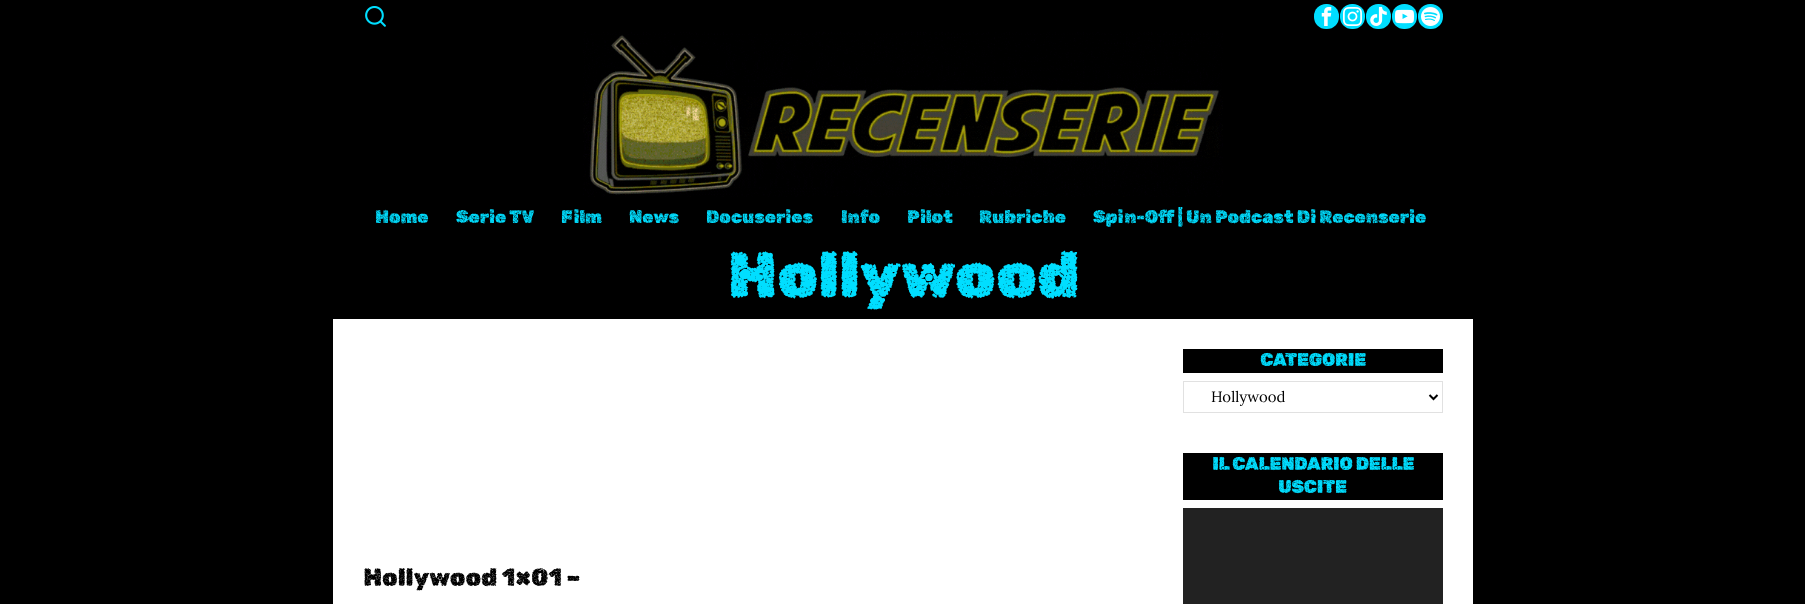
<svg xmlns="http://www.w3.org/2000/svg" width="1805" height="604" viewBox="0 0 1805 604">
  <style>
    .t1 { font: 18px Rubik Distressed; fill: #00deff; }
    .t2 { font: bold 64px Rubik Microbe; fill: #00deff; }
    .t3 { font: bold 18px Rubik Microbe; letter-spacing: -0.25px; fill: #00deff; }
    .t4 { font: 15px Lora; fill: #000; }
    .t5 { font: bold 24.4px Rubik Microbe; fill: #000; }
  </style>
  <rect width="100%" height="100%" fill="#000"/>
  <rect x="333" y="319" width="1140" height="285" fill="#fff"/>
  <image x="365" y="6" width="21" height="21" href="images/1.png"/>
  <rect x="1314" y="4" width="25" height="25" rx="12" fill="#00deff"/>
  <image x="1321" y="7" width="11" height="19" href="images/2.png"/>
  <rect x="1340" y="4" width="25" height="25" rx="12" fill="#00deff"/>
  <image x="1343" y="7" width="19" height="19" href="images/3.png"/>
  <rect x="1366" y="4" width="25" height="25" rx="12" fill="#00deff"/>
  <image x="1370" y="7" width="17" height="19" href="images/4.png"/>
  <rect x="1392" y="4" width="25" height="25" rx="12" fill="#00deff"/>
  <image x="1395" y="9" width="19" height="15" href="images/5.png"/>
  <rect x="1418" y="4" width="25" height="25" rx="12" fill="#00deff"/>
  <image x="1421" y="7" width="19" height="19" href="images/6.png"/>
  <image x="583" y="32" width="640" height="165" href="images/7.png"/>
  <text x="375" y="223" class="t1">Home</text>
  <text x="456" y="223" class="t1">Serie TV</text>
  <text x="561" y="223" class="t1">Film</text>
  <text x="629" y="223" class="t1">News</text>
  <text x="706" y="223" class="t1">Docuseries</text>
  <text x="841" y="223" class="t1">Info</text>
  <text x="907" y="223" class="t1">Pilot</text>
  <text x="979" y="223" class="t1">Rubriche</text>
  <text x="1093" y="223" class="t1">Spin-Off | Un Podcast Di Recenserie</text>
  <text x="727" y="298" class="t2">Hollywood</text>
  <rect x="1183" y="349" width="260" height="24" fill="#000"/>
  <text x="1260" y="366" class="t3">CATEGORIE</text>
  <rect x="1183.5" y="381.5" width="259" height="31" fill="none" stroke="#e1e1e1"/>
  <path d="M1429.5 395L1433.5 399L1437.5 395" fill="none" stroke="#000" stroke-width="2"/>
  <text x="1211" y="402" class="t4">Hollywood</text>
  <rect x="1183" y="453" width="260" height="47" fill="#000"/>
  <text x="1212" y="470" class="t3">IL CALENDARIO DELLE</text>
  <text x="1278" y="493" class="t3">USCITE</text>
  <rect x="1183" y="508" width="260" height="96" fill="#222"/>
  <text x="363" y="586" class="t5">Hollywood 1×01 –</text>
</svg>
